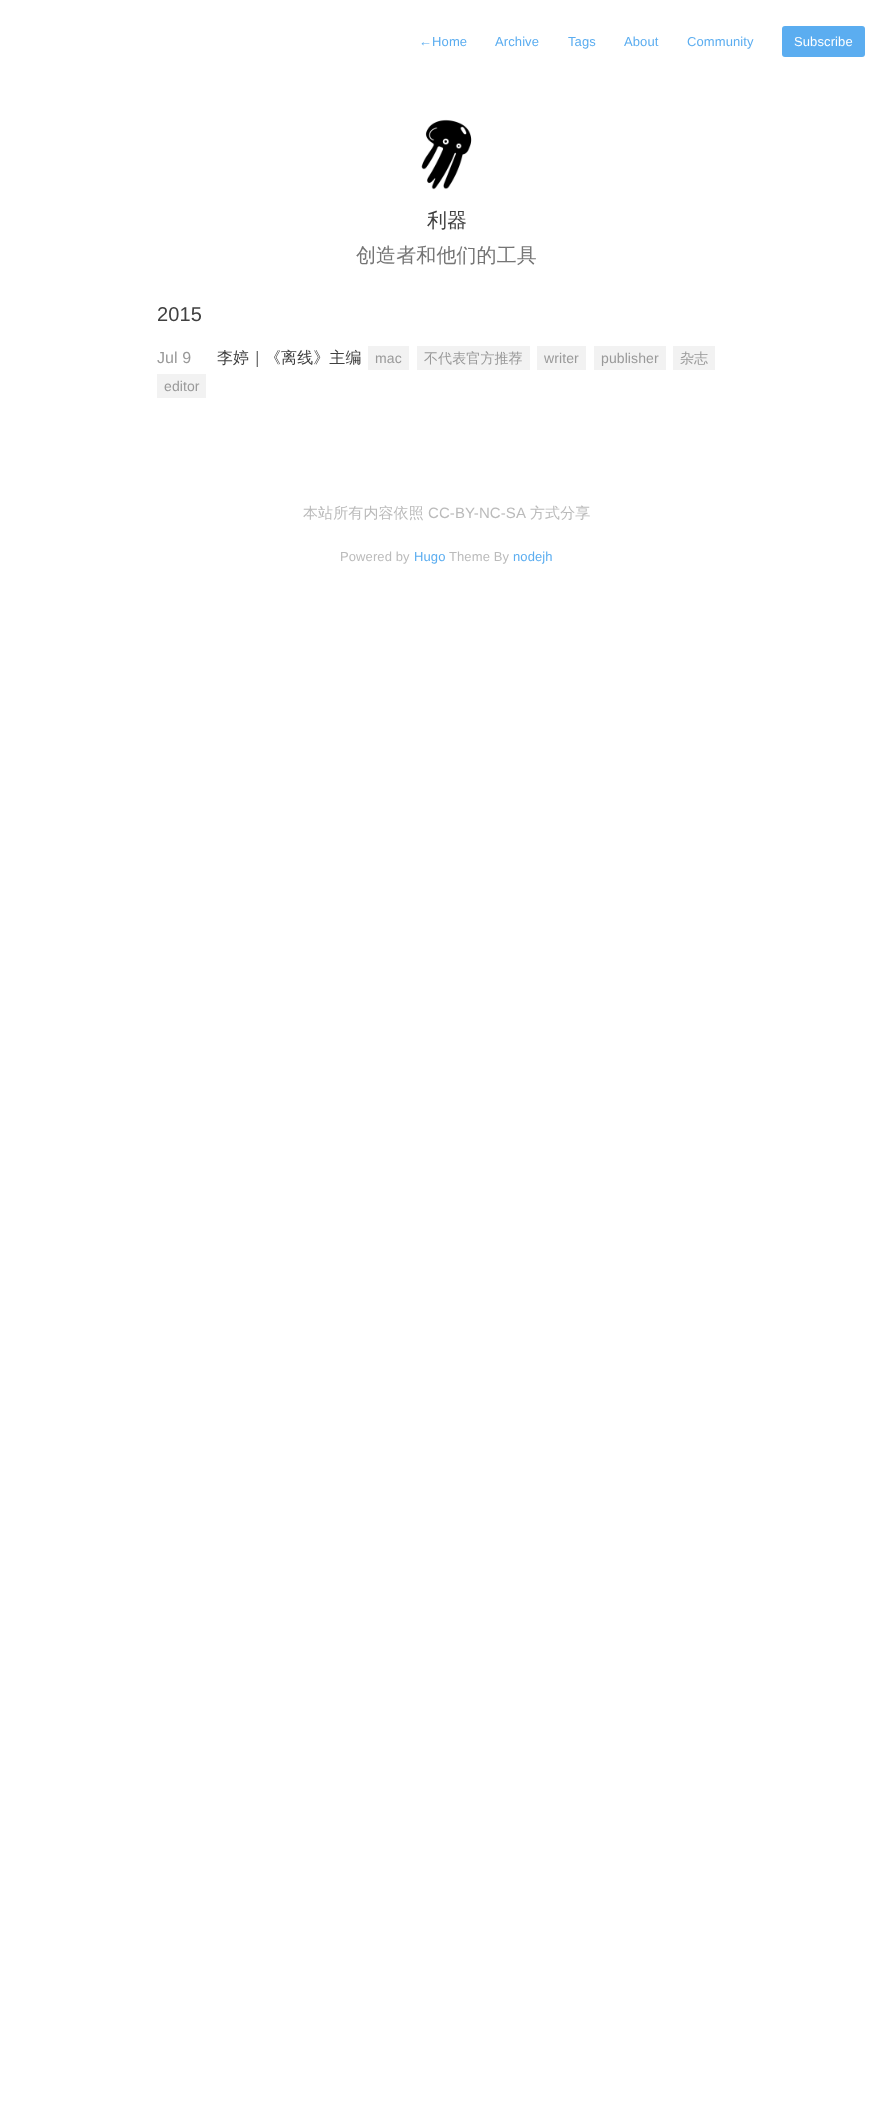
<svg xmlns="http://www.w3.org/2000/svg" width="893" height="2107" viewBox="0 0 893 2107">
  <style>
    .t1 { font: 13px Liberation Sans; letter-spacing: 0.1px; fill: #5badf0; }
    .t2 { font: 13px Liberation Sans; letter-spacing: 0.1px; fill: #fff; }
    .t3 { font: 500 20px WenQuanYi Zen Hei; fill: #404040; }
    .t4 { font: 500 20px WenQuanYi Zen Hei; letter-spacing: 0.1px; fill: #757575; }
    .t5 { font: 20px Liberation Sans; letter-spacing: 0.1px; fill: #404040; }
    .t6 { font: 16px Liberation Sans; letter-spacing: 0.1px; fill: #999; }
    .t7 { font: 500 16px WenQuanYi Zen Hei; letter-spacing: 0.1px; fill: #404040; }
    .t8 { font: 14px Liberation Sans; letter-spacing: 0.1px; fill: #999; }
    .t9 { font: 500 14px WenQuanYi Zen Hei; letter-spacing: 0.1px; fill: #999; }
    .t10 { font: 500 15px WenQuanYi Zen Hei; letter-spacing: 0.1px; fill: #bbb; }
    .t11 { font: 15px Liberation Sans; letter-spacing: 0.1px; fill: #bbb; }
    .t12 { font: 13px Liberation Sans; letter-spacing: 0.1px; fill: #bbb; }
  </style>
  <rect width="100%" height="100%" fill="#fff"/>
  <text x="419" y="46" class="t1">←Home</text>
  <text x="495" y="46" class="t1">Archive</text>
  <text x="568" y="46" class="t1">Tags</text>
  <text x="624" y="46" class="t1">About</text>
  <text x="687" y="46" class="t1">Community</text>
  <rect x="782" y="26" width="83" height="31" rx="3" fill="#5badf0"/>
  <text x="794" y="46" class="t2">Subscribe</text>
  <image x="421" y="119" width="51" height="71" href="images/1.png"/>
  <text x="427" y="227" class="t3">利器</text>
  <text x="356" y="262" class="t4">创造者和他们的工具</text>
  <text x="157" y="321" class="t5">2015</text>
  <text x="157" y="363" class="t6">Jul 9</text>
  <text x="217" y="363" class="t7">李婷｜《离线》主编</text>
  <rect x="368" y="346" width="41" height="24" fill="#f2f2f2"/>
  <text x="375" y="363" class="t8">mac</text>
  <rect x="417" y="346" width="113" height="24" fill="#f2f2f2"/>
  <text x="424" y="363" class="t9">不代表官方推荐</text>
  <rect x="537" y="346" width="49" height="24" fill="#f2f2f2"/>
  <text x="544" y="363" class="t8">writer</text>
  <rect x="594" y="346" width="72" height="24" fill="#f2f2f2"/>
  <text x="601" y="363" class="t8">publisher</text>
  <rect x="673" y="346" width="42" height="24" fill="#f2f2f2"/>
  <text x="680" y="363" class="t9">杂志</text>
  <rect x="157" y="374" width="49" height="24" fill="#f2f2f2"/>
  <text x="164" y="391" class="t8">editor</text>
  <text x="303" y="518" class="t10">本站所有内容依照</text>
  <text x="428" y="518" class="t11">CC-BY-NC-SA</text>
  <text x="530" y="518" class="t10">方式分享</text>
  <text x="340" y="561" class="t12">Powered by</text>
  <text x="414" y="561" class="t1">Hugo</text>
  <text x="449" y="561" class="t12">Theme By</text>
  <text x="513" y="561" class="t1">nodejh</text>
</svg>
